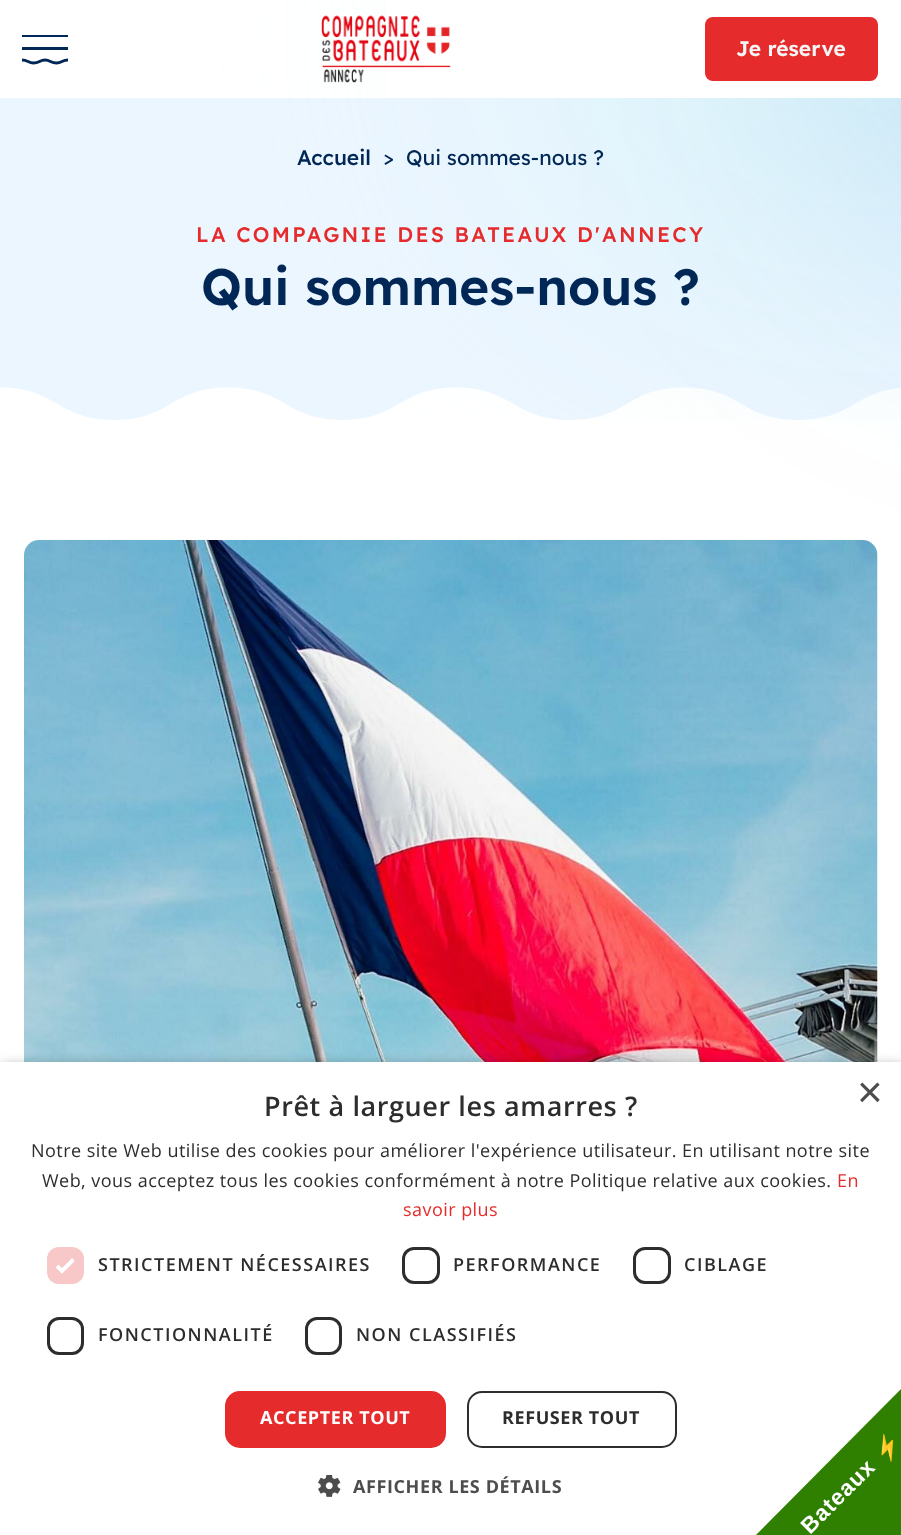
<svg xmlns="http://www.w3.org/2000/svg" width="901" height="1535" viewBox="0 0 901 1535">
  <style>
    .t1 { font: 600 21px Lexend Deca; fill: #f5f5f5; }
    .t2 { font: 500 21px Lexend Deca; fill: #002755; }
    .t3 { font: 21px Lexend Deca; fill: #002755; }
    .t4 { font: 500 21px Lexend Deca; letter-spacing: 2.25px; fill: #e52b2b; }
    .t5 { font: 600 51px Lexend Deca; fill: #002755; }
    .t6 { font: 44px Liberation Sans; fill: #4d4d4d; }
    .t7 { font: 600 27px Open Sans; letter-spacing: 0.6px; fill: #2d2d2d; }
    .t8 { font: 18px Open Sans; letter-spacing: 0.45px; fill: #2d2d2d; }
    .t9 { font: 18px Open Sans; letter-spacing: 0.45px; fill: #e52b2b; }
    .t10 { font: 600 18px Open Sans; letter-spacing: 1.5px; fill: #2d2d2d; }
    .t11 { font: bold 18px Open Sans; letter-spacing: 0.6px; fill: #fff; }
    .t12 { font: bold 18px Open Sans; letter-spacing: 0.6px; fill: #2d2d2d; }
    .t13 { font: bold 18px Open Sans; letter-spacing: 0.6px; fill: #4d4d4d; }
    .t14 { font: bold 22.5px Noto Color Emoji; letter-spacing: 1px; fill: #fff; }
    .t15 { font: bold 22.5px Liberation Sans; letter-spacing: 1px; fill: #fff; }
  </style>
  <defs>
    <clipPath id="clip1"><rect x="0" y="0" width="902" height="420"/></clipPath>
    <clipPath id="clip2"><rect x="21" y="35" width="48" height="30"/></clipPath>
  </defs>
  <rect width="100%" height="100%" fill="#fff"/>
  <rect x="0" y="98" width="901" height="288" fill="#ecf6ff"/>
  <image x="0" y="386" width="901" height="34" href="images/2.png"/>
  <g clip-path="url(#clip1)">
    <rect x="540" y="-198" width="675" height="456" rx="228" fill="#cbf3f680" filter="blur(150px)"/>
  </g>
  <rect x="827" y="-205" width="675" height="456" rx="228" fill="#2377da26" filter="blur(150px)"/>
  <rect x="386" y="0" width="515" height="98" fill="#fff"/>
  <g clip-path="url(#clip2)">
    <path d="M22 34H68V37H22ZM22 47H68V50H22Z" fill="#002755"/>
  </g>
  <path d="M22 60C28 60 28 63 33.5 63C39.5 63 39.5 60 45 60C50.5 60 50.5 63 56.5 63C62 63 62 60 68 60" fill="none" stroke="#002755" stroke-width="2.9"/>
  <image x="321" y="15" width="130" height="68" href="images/1.png"/>
  <rect x="705" y="17" width="173" height="64" rx="8" fill="#e52b2b"/>
  <text x="736" y="56" class="t1">Je réserve</text>
  <text x="297" y="165" class="t2">Accueil</text>
  <text x="383" y="165" class="t3">&gt;</text>
  <text x="406" y="165" class="t3">Qui sommes-nous ?</text>
  <text x="196" y="242" class="t4">LA COMPAGNIE DES BATEAUX D'ANNECY</text>
  <text x="201" y="305" class="t5">Qui sommes-nous ?</text>
  <image x="24" y="540" width="854" height="522" href="images/3.png"/>
  <rect x="2" y="1065" width="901" height="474" fill="#00000059" filter="blur(6px)"/>
  <rect x="0" y="1062" width="901" height="473" fill="#fff"/>
  <text x="857" y="1107" class="t6">×</text>
  <text x="264" y="1116" class="t7">Prêt à larguer les amarres ?</text>
  <text x="31" y="1157" class="t8">Notre site Web utilise des cookies pour améliorer l'expérience utilisateur. En utilisant notre site</text>
  <text x="42" y="1187" class="t8">Web, vous acceptez tous les cookies conformément à notre Politique relative aux cookies.</text>
  <text x="837" y="1187" class="t9">En</text>
  <text x="403" y="1216" class="t9">savoir plus</text>
  <rect x="47" y="1247" width="37" height="37" rx="12" fill="#f8c8c8"/>
  <path d="M57 1266L62 1271L73.5 1259.5" fill="none" stroke="#fff" stroke-width="3.9"/>
  <text x="98" y="1271" class="t10">STRICTEMENT NÉCESSAIRES</text>
  <rect x="403.5" y="1248.5" width="35" height="34" rx="10.5" fill="none" stroke="#2d2d2d" stroke-width="3"/>
  <text x="453" y="1271" class="t10">PERFORMANCE</text>
  <rect x="634.5" y="1248.5" width="35" height="34" rx="10.5" fill="none" stroke="#2d2d2d" stroke-width="3"/>
  <text x="684" y="1271" class="t10">CIBLAGE</text>
  <rect x="48.5" y="1318.5" width="34" height="35" rx="10.5" fill="none" stroke="#2d2d2d" stroke-width="3"/>
  <text x="98" y="1341" class="t10">FONCTIONNALITÉ</text>
  <rect x="306.5" y="1318.5" width="34" height="35" rx="10.5" fill="none" stroke="#2d2d2d" stroke-width="3"/>
  <text x="356" y="1341" class="t10">NON CLASSIFIÉS</text>
  <rect x="225" y="1391" width="221" height="57" rx="15" fill="#e52b2b"/>
  <text x="260" y="1424" class="t11">ACCEPTER TOUT</text>
  <rect x="468" y="1392" width="208" height="55" rx="14" fill="none" stroke="#2d2d2d" stroke-width="2"/>
  <text x="502" y="1424" class="t12">REFUSER TOUT</text>
  <image x="318" y="1475" width="23" height="22" href="images/4.png"/>
  <text x="353" y="1493" class="t13">AFFICHER LES DÉTAILS</text>
  <path d="M750 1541L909 1381C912 1379 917 1379 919 1381L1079 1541C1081 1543 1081 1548 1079 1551L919 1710C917 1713 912 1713 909 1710L750 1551C747 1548 747 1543 750 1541Z" fill="#2f8000"/>
  <text x="883" y="1463" transform="rotate(-45 883 1463)" class="t14">⚡</text>
  <text x="810" y="1535" transform="rotate(-45 810 1535)" class="t15">Bateaux</text>
</svg>
